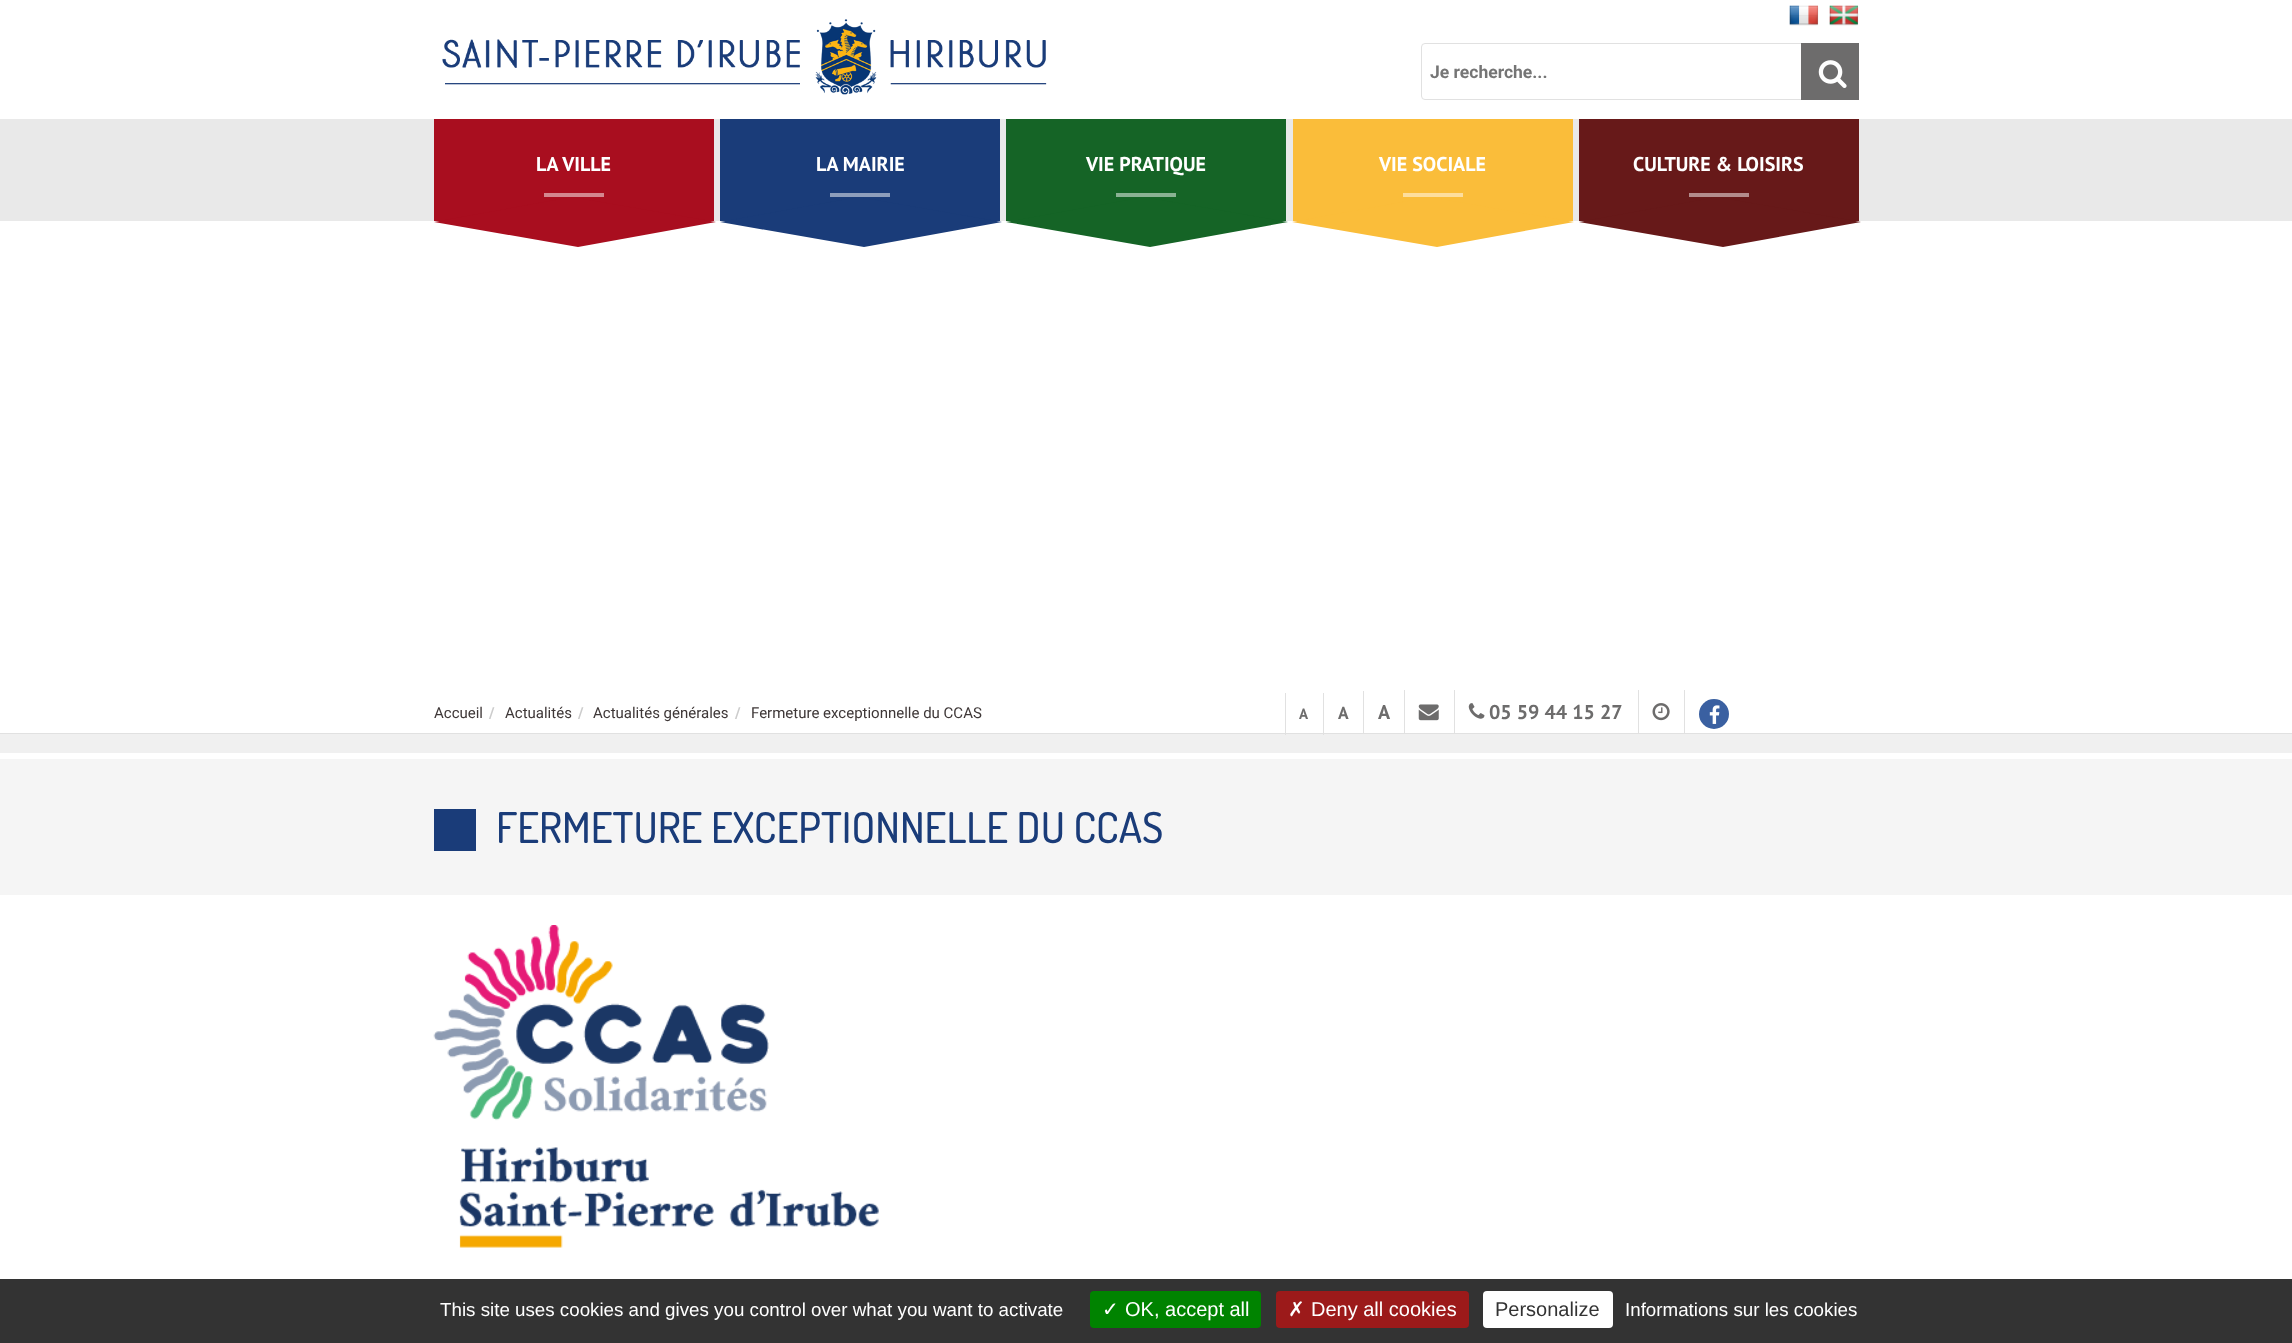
<svg xmlns="http://www.w3.org/2000/svg" width="2292" height="1343" viewBox="0 0 2292 1343">
  <style>
    .t1 { font: bold 17.5px Roboto; fill: #757575; }
    .t2 { font: bold 20px PT Sans; fill: #fff; }
    .t3 { font: 15px Roboto; fill: #3e3737; }
    .t4 { font: bold 15px Roboto; fill: #ccc; }
    .t5 { font: bold 15px PT Sans; fill: #6d6c6c; }
    .t6 { font: bold 17.5px PT Sans; fill: #6d6c6c; }
    .t7 { font: bold 20px PT Sans; fill: #6d6c6c; }
    .t8 { font: 500 42.5px Dosis; fill: #1a3c79; }
    .t9 { font: 18.75px Liberation Sans; fill: #fff; }
    .t10 { font: 20px DejaVu Sans; fill: #fff; }
    .t11 { font: 20px Liberation Sans; fill: #fff; }
    .t12 { font: 20px Liberation Sans; fill: #333; }
  </style>
  <rect width="100%" height="100%" fill="#fff"/>
  <image x="442" y="19" width="605" height="76" href="images/1.png"/>
  <image x="1789" y="5" width="30" height="21" href="images/2.png"/>
  <image x="1829" y="5" width="30" height="21" href="images/3.png"/>
  <rect x="1421.5" y="43.5" width="437" height="56" rx="3.5" fill="none" stroke="#e1e1e1"/>
  <text x="1430" y="78" class="t1">Je recherche...</text>
  <rect x="1801" y="43" width="58" height="57" fill="#6d6c6c"/>
  <image x="1818" y="60" width="29" height="28" href="images/4.png"/>
  <rect x="0" y="119" width="2292" height="102" fill="#e9e9e9"/>
  <rect x="434" y="119" width="280" height="102" fill="#a90e1f"/>
  <text x="536" y="171" class="t2">LA VILLE</text>
  <rect x="544" y="193" width="60" height="4" fill="#d4878f"/>
  <path d="M434 222L572 197L716 222L578 247Z" fill="#a90e1f"/>
  <rect x="720" y="119" width="280" height="102" fill="#1a3c79"/>
  <text x="816" y="171" class="t2">LA MAIRIE</text>
  <rect x="830" y="193" width="60" height="4" fill="#8d9ebc"/>
  <path d="M720 222L858 197L1002 222L864 247Z" fill="#1a3c79"/>
  <rect x="1006" y="119" width="280" height="102" fill="#156426"/>
  <text x="1086" y="171" class="t2">VIE PRATIQUE</text>
  <rect x="1116" y="193" width="60" height="4" fill="#8ab293"/>
  <path d="M1006 222L1144 197L1288 222L1150 247Z" fill="#156426"/>
  <rect x="1293" y="119" width="280" height="102" fill="#fabd3a"/>
  <text x="1379" y="171" class="t2">VIE SOCIALE</text>
  <rect x="1403" y="193" width="60" height="4" fill="#fdde9d"/>
  <path d="M1292 222L1430 197L1574 222L1437 247Z" fill="#fabd3a"/>
  <rect x="1579" y="119" width="280" height="102" fill="#671919"/>
  <text x="1633" y="171" class="t2">CULTURE &amp; LOISIRS</text>
  <rect x="1689" y="193" width="60" height="4" fill="#b38c8c"/>
  <path d="M1579 222L1717 197L1861 222L1723 247Z" fill="#671919"/>
  <text x="434" y="718" class="t3">Accueil</text>
  <text x="489" y="718" class="t4">/</text>
  <text x="505" y="718" class="t3">Actualités</text>
  <text x="578" y="718" class="t4">/</text>
  <text x="593" y="718" class="t3">Actualités générales</text>
  <text x="735" y="718" class="t4">/</text>
  <text x="751" y="718" class="t3">Fermeture exceptionnelle du CCAS</text>
  <rect x="0" y="734" width="2292" height="19" fill="#f0f0f0"/>
  <rect x="0" y="733" width="2292" height="1" fill="#e1e1e1"/>
  <rect x="1285" y="693" width="1" height="42" fill="#e1e1e1"/>
  <text x="1299" y="719" class="t5">A</text>
  <rect x="1323" y="693" width="1" height="42" fill="#e1e1e1"/>
  <text x="1338" y="719" class="t6">A</text>
  <rect x="1363" y="691" width="1" height="43" fill="#e1e1e1"/>
  <text x="1378" y="719" class="t7">A</text>
  <rect x="1404" y="690" width="1" height="43" fill="#e1e1e1"/>
  <image x="1418" y="704" width="21" height="17" href="images/5.png"/>
  <rect x="1454" y="690" width="1" height="43" fill="#e1e1e1"/>
  <image x="1468" y="703" width="17" height="16" href="images/6.png"/>
  <text x="1489" y="719" class="t7">05 59 44 15 27</text>
  <rect x="1638" y="690" width="1" height="43" fill="#e1e1e1"/>
  <image x="1652" y="703" width="18" height="18" href="images/7.png"/>
  <rect x="1684" y="690" width="1" height="43" fill="#e1e1e1"/>
  <circle cx="1714" cy="714" r="15" fill="#3a60a1"/>
  <image x="1709" y="705" width="11" height="19" href="images/8.png"/>
  <rect x="0" y="759" width="2292" height="136" fill="#f5f5f5"/>
  <rect x="434" y="809" width="42" height="42" fill="#1a3c79"/>
  <text x="496" y="843" class="t8">FERMETURE EXCEPTIONNELLE DU CCAS</text>
  <image x="433" y="925" width="446" height="323" href="images/9.png"/>
  <rect x="0" y="1279" width="2292" height="64" fill="#333"/>
  <text x="440" y="1316" class="t9">This site uses cookies and gives you control over what you want to activate</text>
  <rect x="1090" y="1291" width="171" height="37" rx="4" fill="#008300"/>
  <text x="1102" y="1316" class="t10">✓</text>
  <text x="1125" y="1316" class="t11">OK, accept all</text>
  <rect x="1276" y="1291" width="193" height="37" rx="4" fill="#9c1a1a"/>
  <text x="1288" y="1316" class="t10">✗</text>
  <text x="1311" y="1316" class="t11">Deny all cookies</text>
  <rect x="1483" y="1291" width="130" height="37" rx="4" fill="#fff"/>
  <text x="1495" y="1316" class="t12">Personalize</text>
  <text x="1625" y="1316" class="t9">Informations sur les cookies</text>
</svg>
